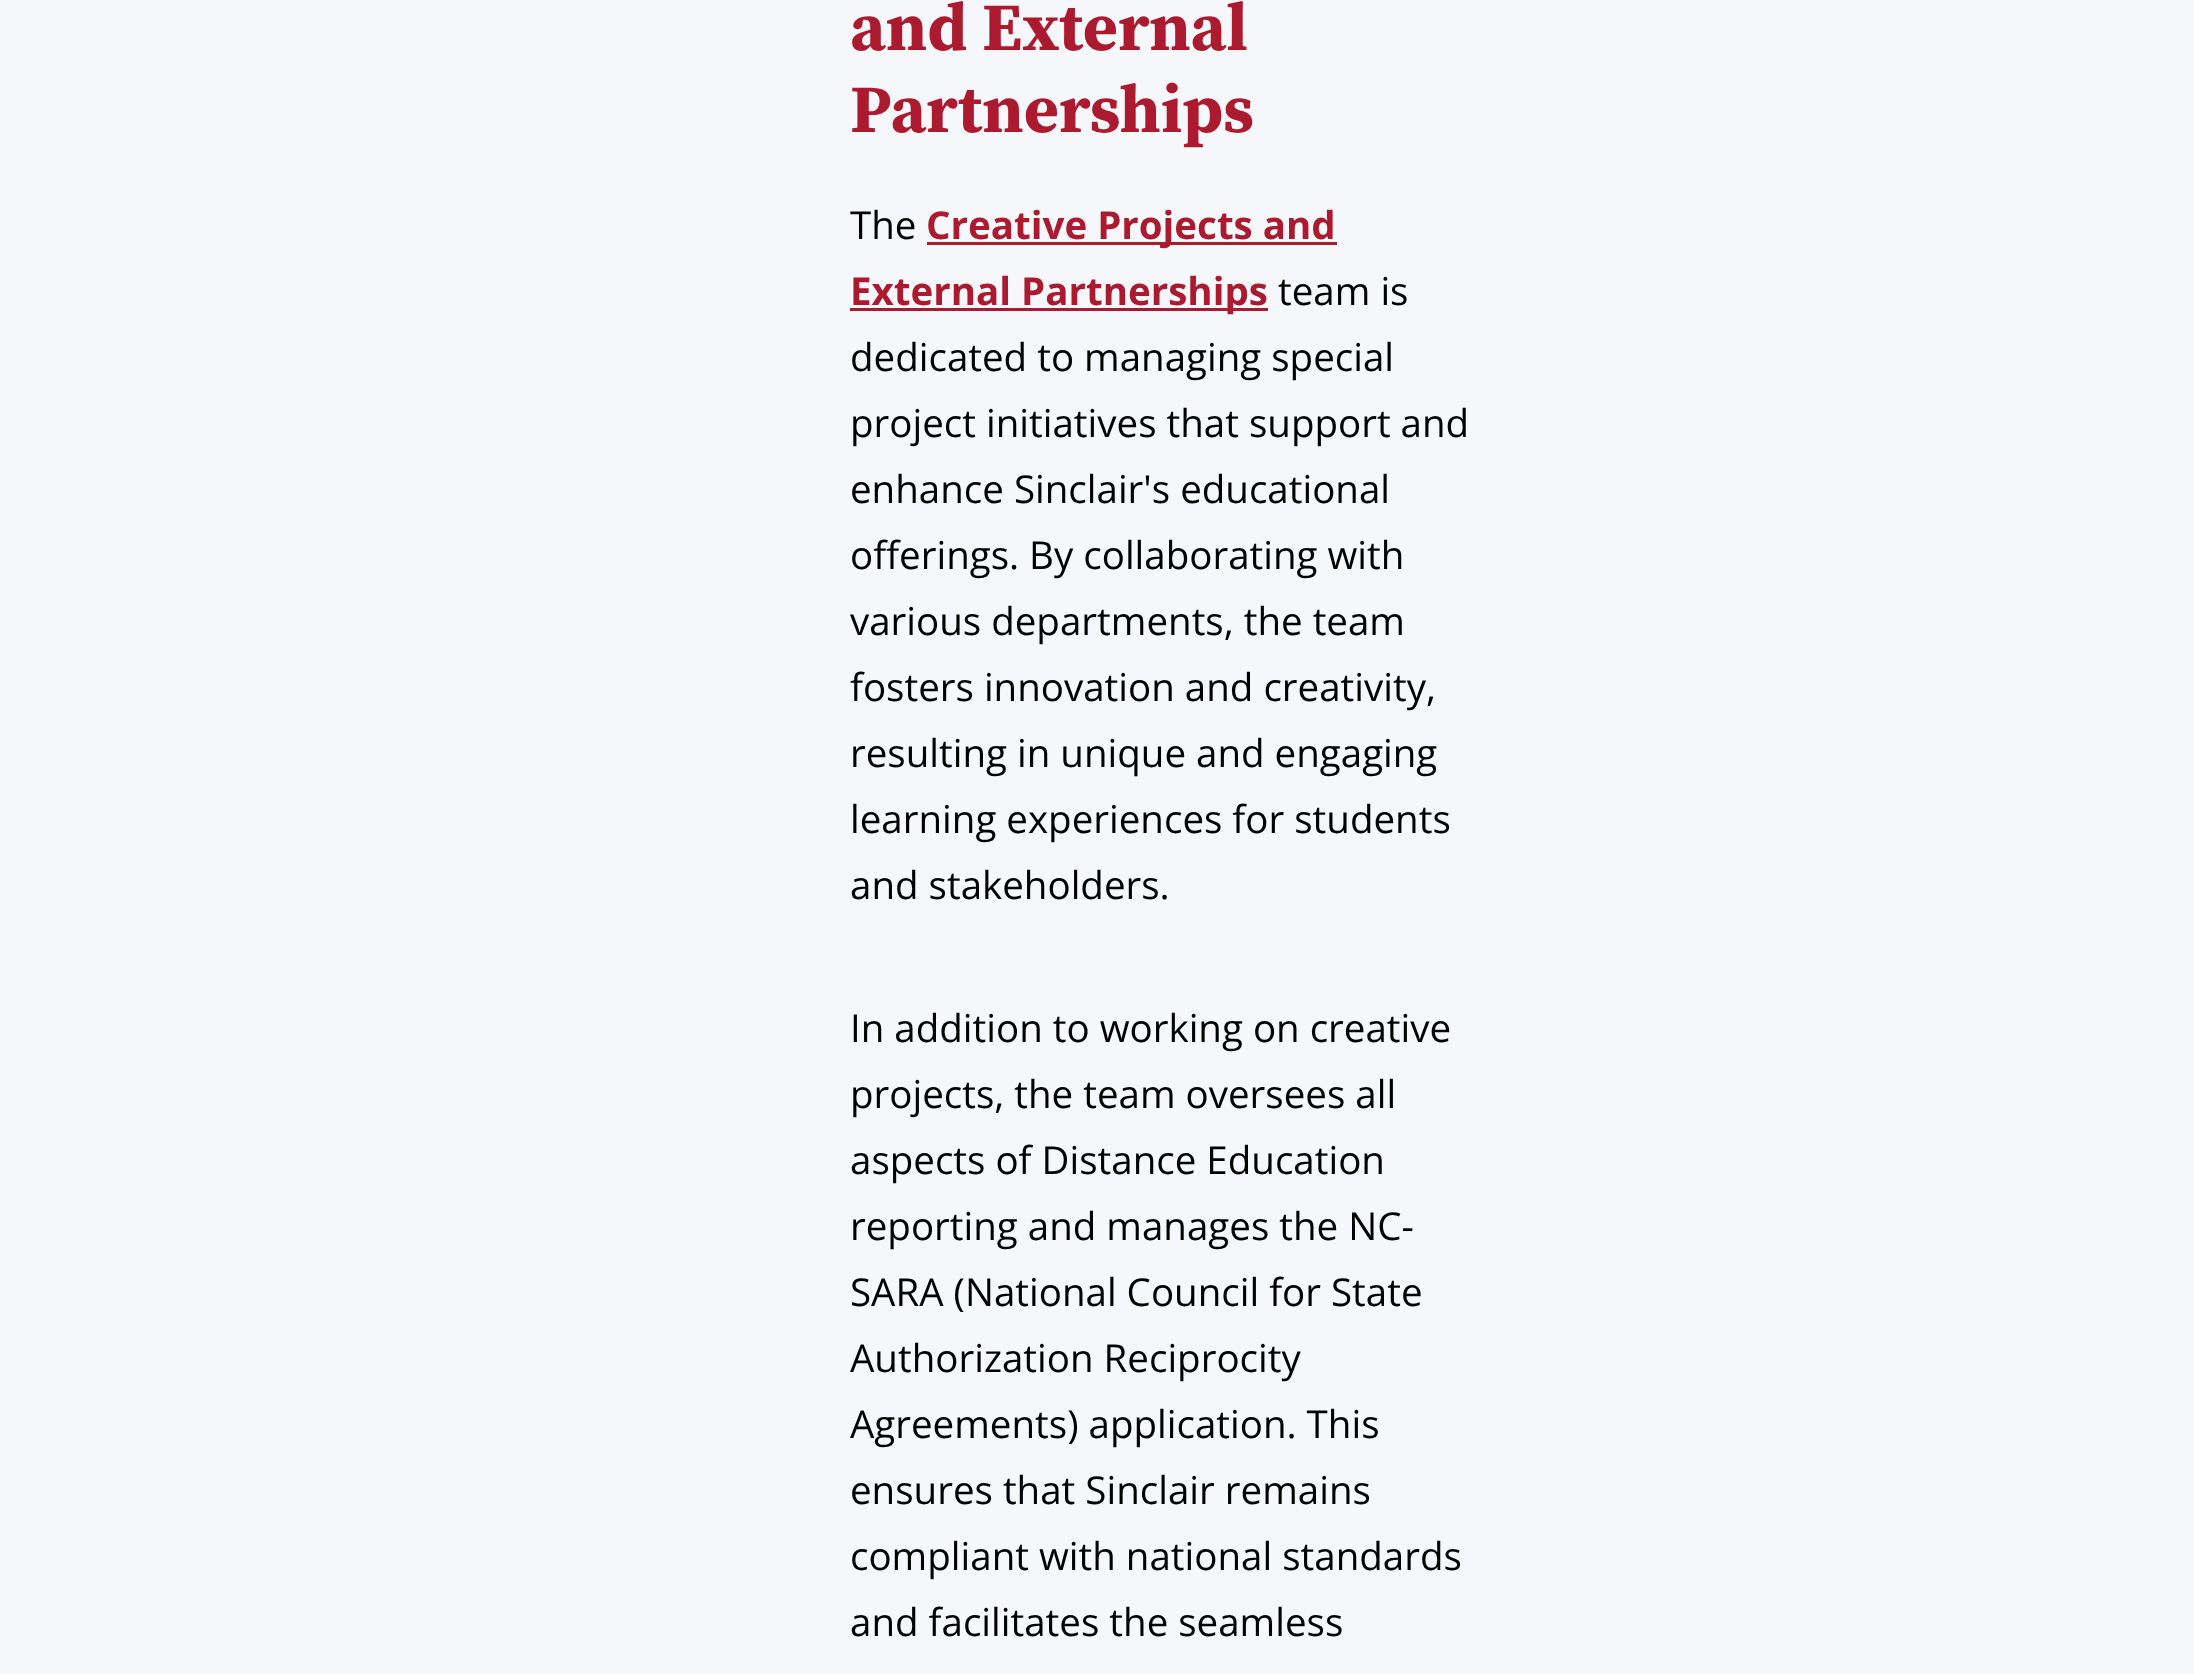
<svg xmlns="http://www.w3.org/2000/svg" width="2194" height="1674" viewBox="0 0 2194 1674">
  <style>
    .t1 { font: bold 67.5px Source Serif Pro; fill: #ac1a2f; }
    .t2 { font: 38.5px Open Sans; fill: #000; }
    .t3 { font: bold 38.5px Open Sans; fill: #ac1a2f; }
  </style>
  <rect width="100%" height="100%" fill="#f5f7fa"/>
  <text x="850" y="50" class="t1">and External</text>
  <text x="850" y="132" class="t1">Partnerships</text>
  <text x="850" y="239" class="t2">The</text>
  <rect x="927" y="242" width="410" height="3" fill="#ac1a2f"/>
  <text x="926" y="239" class="t3">Creative Projects and</text>
  <rect x="850" y="308" width="418" height="3" fill="#ac1a2f"/>
  <text x="850" y="305" class="t3">External Partnerships</text>
  <text x="1278" y="305" class="t2">team is</text>
  <text x="850" y="371" class="t2">dedicated to managing special</text>
  <text x="850" y="437" class="t2">project initiatives that support and</text>
  <text x="850" y="503" class="t2">enhance Sinclair's educational</text>
  <text x="850" y="569" class="t2">offerings. By collaborating with</text>
  <text x="850" y="635" class="t2">various departments, the team</text>
  <text x="850" y="701" class="t2">fosters innovation and creativity,</text>
  <text x="850" y="767" class="t2">resulting in unique and engaging</text>
  <text x="850" y="833" class="t2">learning experiences for students</text>
  <text x="850" y="899" class="t2">and stakeholders.</text>
  <text x="850" y="1042" class="t2">In addition to working on creative</text>
  <text x="850" y="1108" class="t2">projects, the team oversees all</text>
  <text x="850" y="1174" class="t2">aspects of Distance Education</text>
  <text x="850" y="1240" class="t2">reporting and manages the NC-</text>
  <text x="850" y="1306" class="t2">SARA (National Council for State</text>
  <text x="850" y="1372" class="t2">Authorization Reciprocity</text>
  <text x="850" y="1438" class="t2">Agreements) application. This</text>
  <text x="850" y="1504" class="t2">ensures that Sinclair remains</text>
  <text x="850" y="1570" class="t2">compliant with national standards</text>
  <text x="850" y="1636" class="t2">and facilitates the seamless</text>
</svg>
